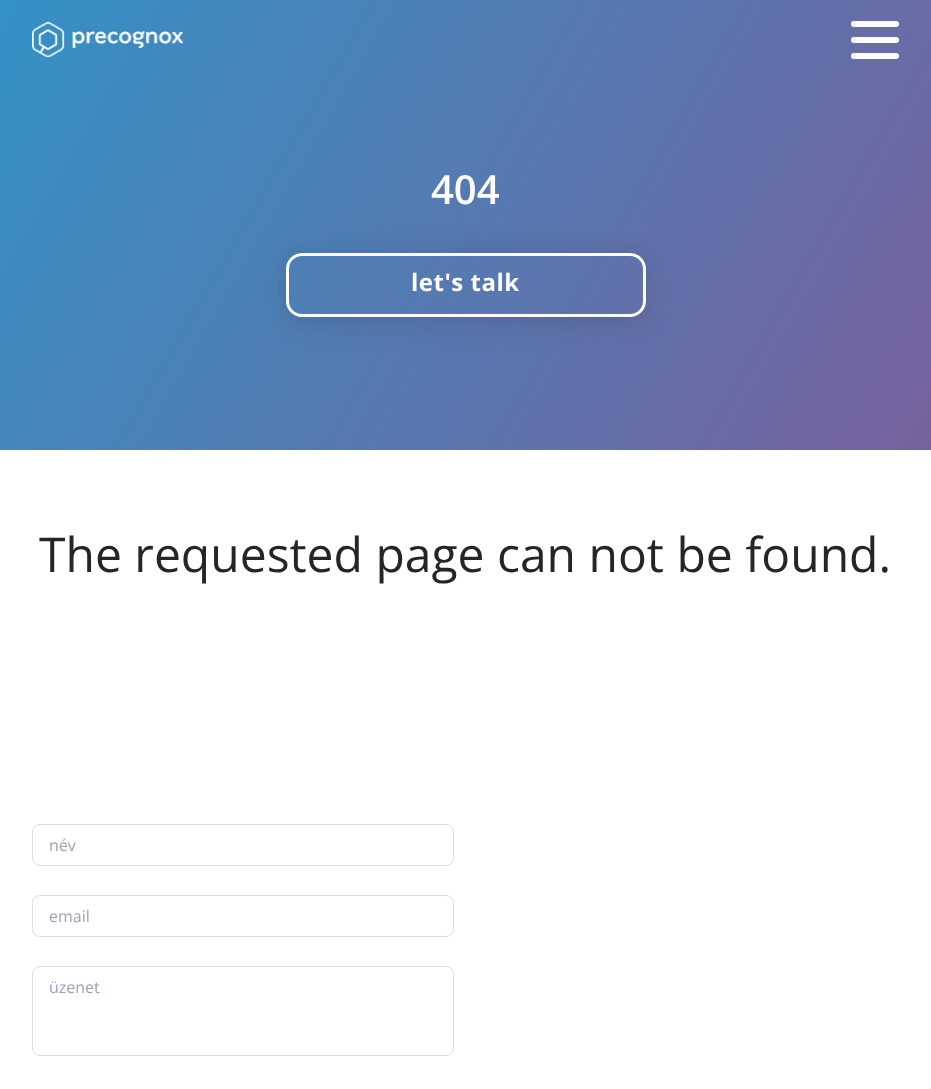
<svg xmlns="http://www.w3.org/2000/svg" width="931" height="1089" viewBox="0 0 931 1089">
  <style>
    .t1 { font: 600 40px Open Sans; fill: #fdfdfd; }
    .t2 { font: bold 24px Open Sans; letter-spacing: 0.5px; fill: #fdfdfd; }
    .t3 { font: 48px Open Sans; fill: #252525; }
    .t4 { font: 16px Open Sans; fill: #9ea0b8; }
  </style>
  <defs>
    <linearGradient id="g1" gradientUnits="userSpaceOnUse" x1="19" y1="-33" x2="912" y2="483"><stop offset="0" stop-color="#3491c6"/><stop offset="1" stop-color="#77629d"/></linearGradient>
    <clipPath id="clip1"><path d="M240 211H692V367H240ZM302 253H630C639 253 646 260 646 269V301C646 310 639 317 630 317H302C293 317 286 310 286 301V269C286 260 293 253 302 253Z" clip-rule="evenodd"/></clipPath>
  </defs>
  <rect width="100%" height="100%" fill="#fff"/>
  <rect x="0" y="0" width="931" height="450" fill="url(#g1)"/>
  <image x="32" y="22" width="151" height="36" href="images/1.png"/>
  <rect x="851" y="21" width="48" height="6" rx="3" fill="#fdfdfd"/>
  <rect x="851" y="37" width="48" height="6" rx="3" fill="#fdfdfd"/>
  <rect x="851" y="53" width="48" height="6" rx="3" fill="#fdfdfd"/>
  <text x="431" y="204" class="t1">404</text>
  <g clip-path="url(#clip1)">
    <rect x="286" y="257" width="360" height="64" rx="16" fill="#25252533" filter="blur(15px)"/>
  </g>
  <rect x="287.5" y="254.5" width="357" height="61" rx="14.5" fill="none" stroke="#fdfdfd" stroke-width="3"/>
  <text x="411" y="291" class="t2">let's talk</text>
  <text x="39" y="572" class="t3">The requested page can not be found.</text>
  <rect x="32.5" y="824.5" width="421" height="41" rx="7.5" fill="none" stroke="#dddedf"/>
  <text x="49" y="851" class="t4">név</text>
  <rect x="32.5" y="895.5" width="421" height="41" rx="7.5" fill="none" stroke="#dddedf"/>
  <text x="49" y="922" class="t4">email</text>
  <rect x="32.5" y="966.5" width="421" height="89" rx="7.5" fill="none" stroke="#dddedf"/>
  <text x="49" y="993" class="t4">üzenet</text>
</svg>
